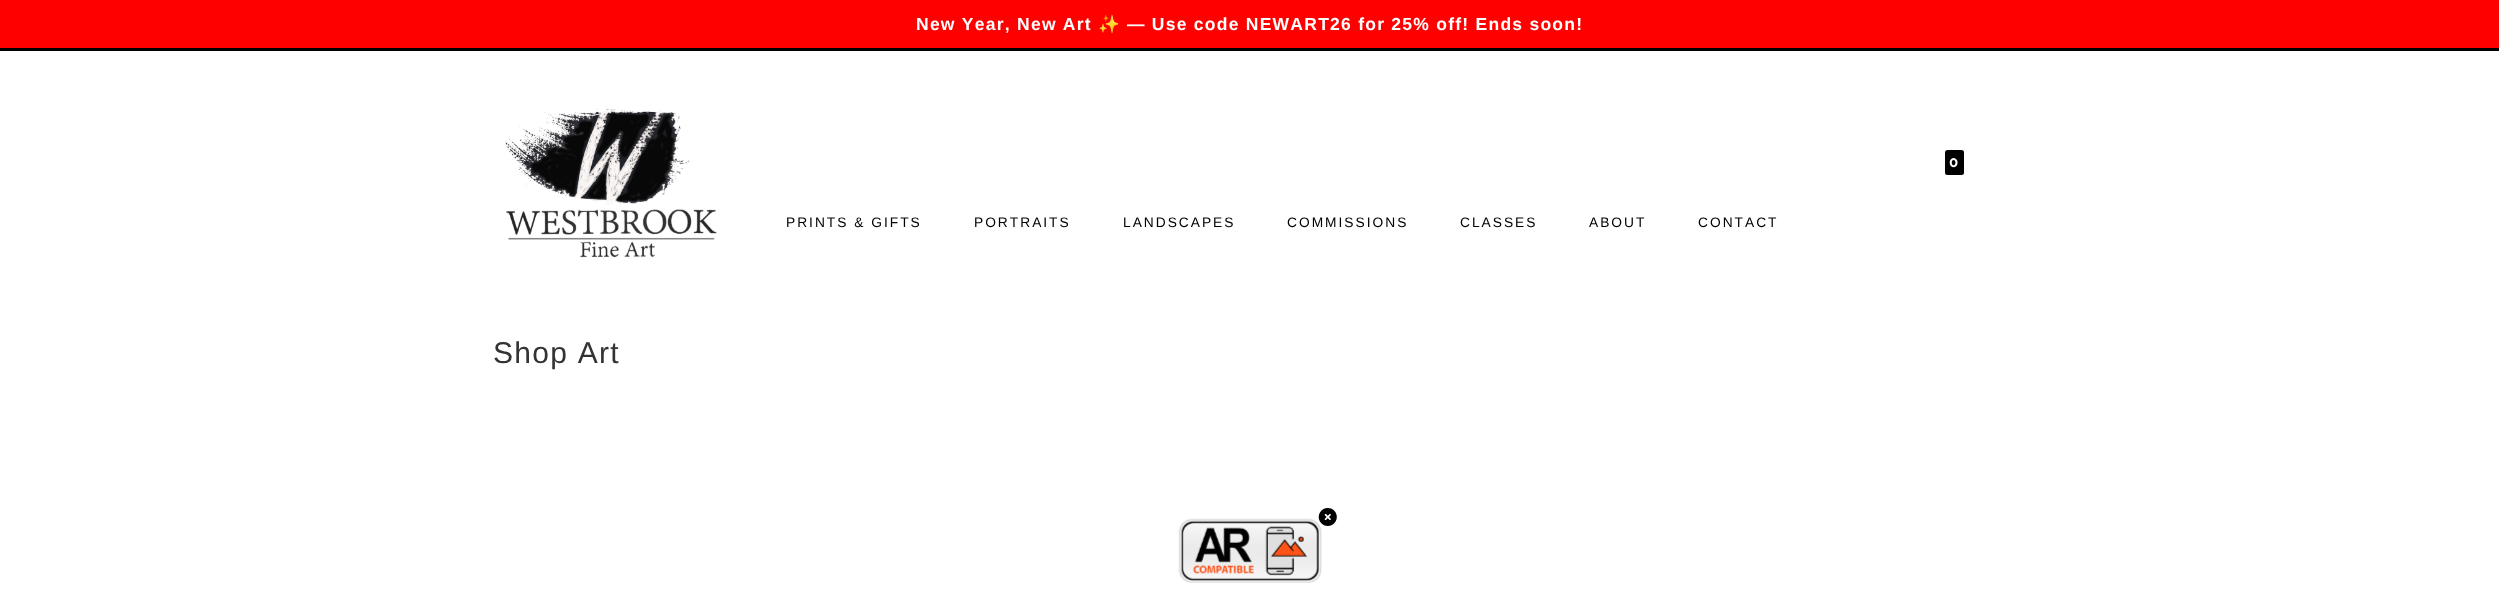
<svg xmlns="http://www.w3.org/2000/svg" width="2499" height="589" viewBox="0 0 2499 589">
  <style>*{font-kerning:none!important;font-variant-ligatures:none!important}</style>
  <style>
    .t1 { font: bold 17.5px Liberation Sans; letter-spacing: 1.25px; fill: #fff; }
    .t2 { font: bold 17.5px Noto Color Emoji; letter-spacing: 1.25px; fill: #fff; }
    .t3 { font: bold 15px Raleway; letter-spacing: 2px; fill: #fff; }
    .t4 { font: 13.75px Liberation Sans; letter-spacing: 2px; fill: #000; }
    .t5 { font: 30px Liberation Sans; letter-spacing: 1.25px; fill: #333; }
  </style>
  <rect width="100%" height="100%" fill="#fff"/>
  <rect x="0" y="0" width="2499" height="48" fill="#f00"/>
  <rect x="0" y="48" width="2499" height="3" fill="#000"/>
  <text x="916" y="30" class="t1">New Year, New Art</text>
  <text x="1098" y="30" class="t2">✨</text>
  <text x="1127" y="30" class="t1">— Use code NEWART26 for 25% off! Ends soon!</text>
  <image x="505" y="108" width="212" height="150" href="images/1.png"/>
  <rect x="1945" y="150" width="19" height="25" rx="2.5" fill="#000"/>
  <text x="1949" y="167" class="t3">0</text>
  <text x="786" y="227" class="t4">PRINTS &amp; GIFTS</text>
  <text x="974" y="227" class="t4">PORTRAITS</text>
  <text x="1123" y="227" class="t4">LANDSCAPES</text>
  <text x="1287" y="227" class="t4">COMMISSIONS</text>
  <text x="1460" y="227" class="t4">CLASSES</text>
  <text x="1589" y="227" class="t4">ABOUT</text>
  <text x="1698" y="227" class="t4">CONTACT</text>
  <text x="493" y="363" class="t5">Shop Art</text>
  <image x="1178" y="518" width="144" height="65" href="images/2.png"/>
  <image x="1318" y="508" width="19" height="18" href="images/3.png"/>
</svg>
